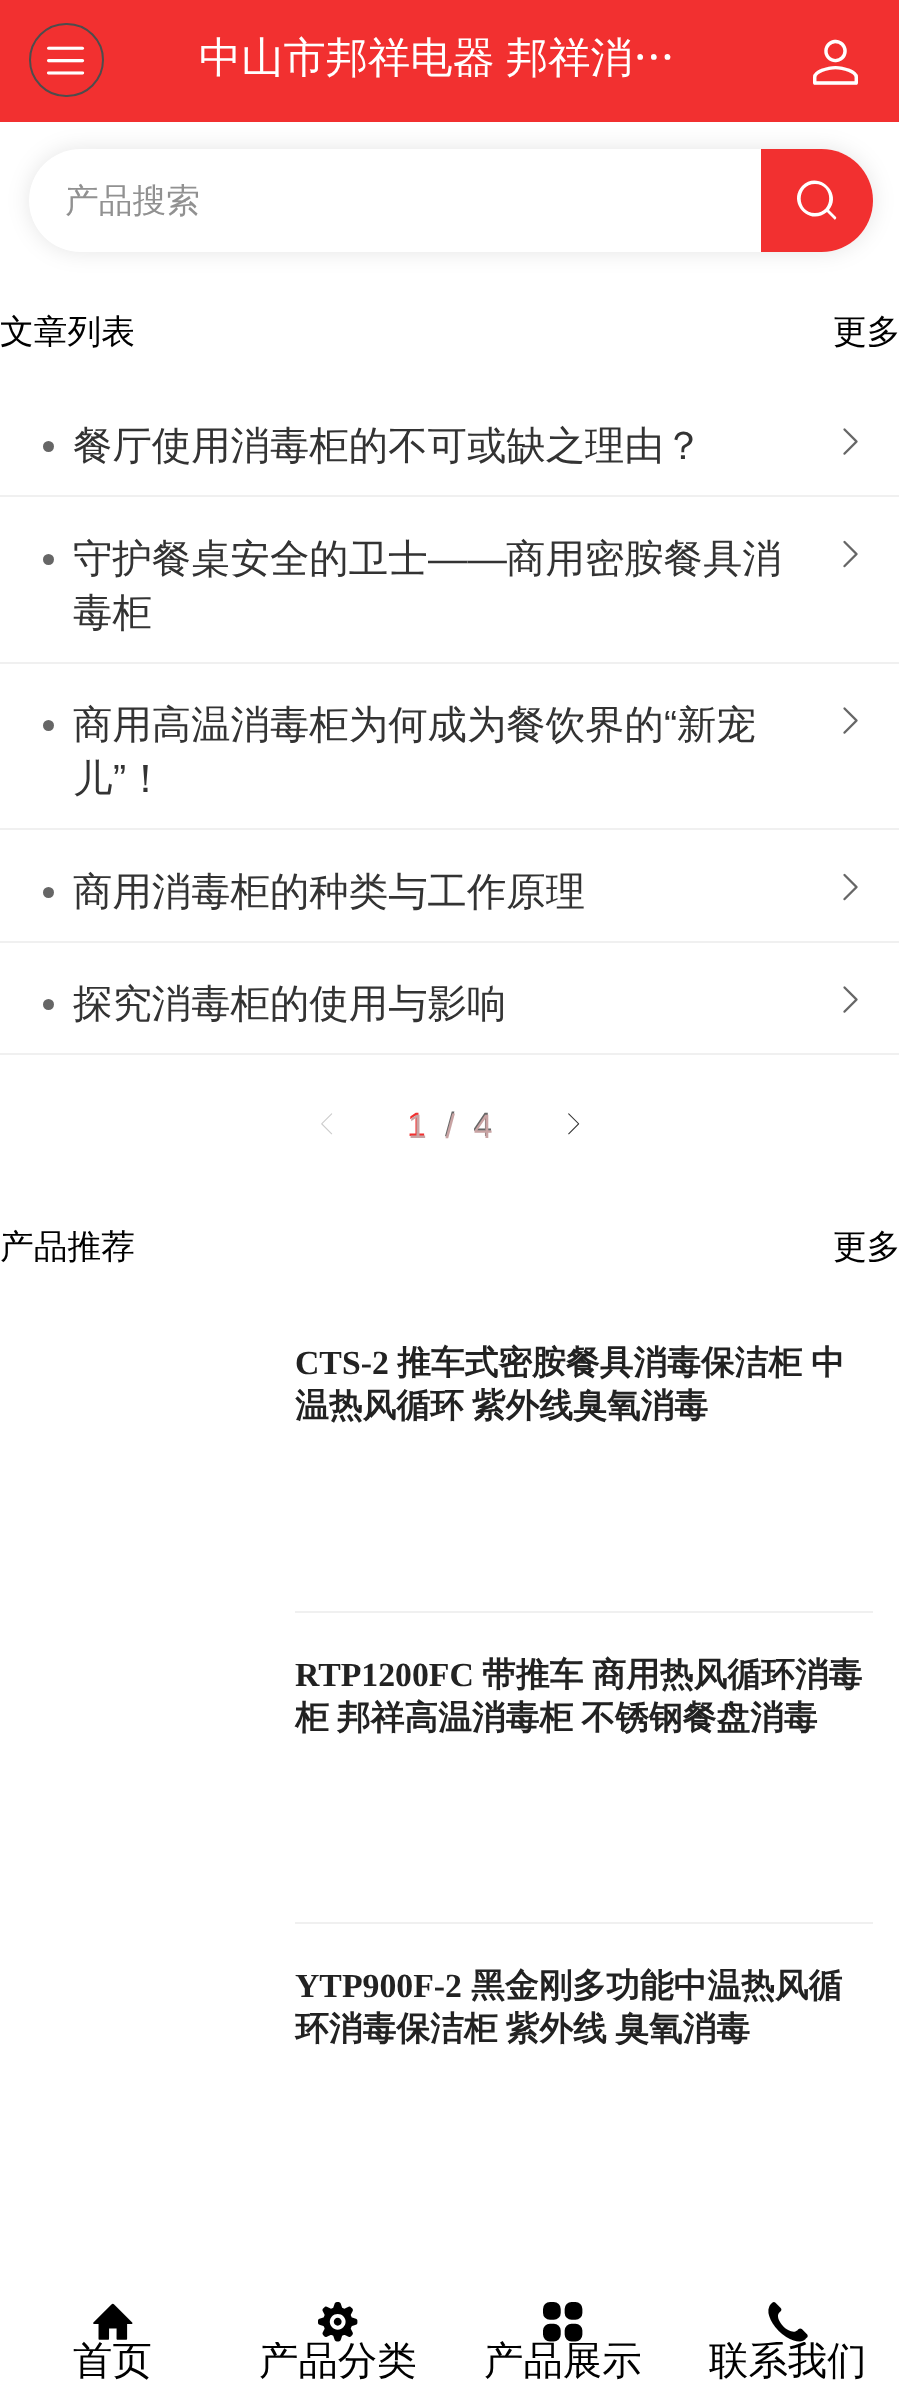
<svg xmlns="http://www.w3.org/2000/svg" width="899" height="2398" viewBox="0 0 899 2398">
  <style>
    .t1 { font: 37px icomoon; fill: #fff; }
    .t2 { font: 500 42.25px WenQuanYi Zen Hei; fill: #fff; }
    .t3 { font: 45px icomoon; fill: #fff; }
    .t4 { font: 500 33.75px WenQuanYi Zen Hei; fill: #919191; }
    .t5 { font: 500 33.75px WenQuanYi Zen Hei; fill: #000; }
    .t6 { font: 500 39.4px WenQuanYi Zen Hei; fill: #333; }
    .t7 { font: 39.4px Liberation Sans; fill: #333; }
    .t8 { font: 21px icomoon; fill: #ccc; }
    .t9 { font: 33.75px Liberation Sans; fill: #f23030; }
    .t10 { font: 33.75px Liberation Sans; fill: #666; }
    .t11 { font: 33.75px Liberation Sans; fill: #c8a3a3; }
    .t12 { font: 21px icomoon; fill: #333; }
    .t13 { font: bold 33.75px Liberation Serif; fill: #222; }
    .t14 { font: bold 33.75px WenQuanYi Zen Hei; fill: #222; }
    .t15 { font: 39.4px icomoon; fill: #000; }
    .t16 { font: 500 39.4px WenQuanYi Zen Hei; fill: #000; }
  </style>
  <defs>
    <clipPath id="clip1"><rect x="225" y="2342" width="225" height="41"/></clipPath>
    <clipPath id="clip2"><rect x="675" y="2342" width="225" height="41"/></clipPath>
  </defs>
  <rect width="100%" height="100%" fill="#fff"/>
  <rect x="29" y="149" width="844" height="103" rx="51.5" fill="#0000001a" filter="blur(11px)"/>
  <rect x="0" y="0" width="899" height="122" fill="#f23030"/>
  <rect x="30" y="24" width="73" height="72" rx="36" fill="none" stroke="#4d4d4d" stroke-width="2"/>
  <text x="47" y="76" class="t1">򰌶</text>
  <text x="199" y="72" class="t2">中山市邦祥电器</text>
  <text x="506" y="72" class="t2">邦祥消…</text>
  <text x="813" y="81" class="t3">򰊈</text>
  <rect x="29" y="149" width="844" height="103" rx="51.5" fill="#fff"/>
  <text x="65" y="212" class="t4">产品搜索</text>
  <path d="M761 149H821.5C850 149 873 172 873 200.5C873 229 850 252 821.5 252H761Z" fill="#f23030"/>
  <path d="M815 213C796 213 796 184 815 184C834 184 834 213 815 213M836 217L829 210C843 193 818 170 802 186C787 202 809 227 827 212L834 219C835 221 837 218 836 217" fill="#fff"/>
  <text x="0" y="343" class="t5">文章列表</text>
  <text x="833" y="343" class="t5">更多</text>
  <circle cx="48.5" cy="446.5" r="5.5" fill="#666"/>
  <text x="73" y="459" class="t6">餐厅使用消毒柜的不可或缺之理由？</text>
  <image x="843" y="428" width="15" height="27" href="images/1.png"/>
  <rect x="0" y="495" width="899" height="2" fill="#f0f0f0"/>
  <circle cx="48.5" cy="559.5" r="5.5" fill="#666"/>
  <text x="73" y="572" class="t6">守护餐桌安全的卫士</text>
  <text x="428" y="572" class="t7">——</text>
  <text x="506" y="572" class="t6">商用密胺餐具消</text>
  <text x="73" y="626" class="t6">毒柜</text>
  <image x="843" y="540" width="15" height="28" href="images/2.png"/>
  <rect x="0" y="662" width="899" height="2" fill="#f0f0f0"/>
  <circle cx="48.5" cy="725.5" r="5.5" fill="#666"/>
  <text x="73" y="738" class="t6">商用高温消毒柜为何成为餐饮界的</text>
  <text x="664" y="738" class="t7">“</text>
  <text x="677" y="738" class="t6">新宠</text>
  <text x="73" y="792" class="t6">儿</text>
  <text x="113" y="792" class="t7">”</text>
  <text x="126" y="792" class="t6">！</text>
  <image x="843" y="707" width="15" height="27" href="images/1.png"/>
  <rect x="0" y="828" width="899" height="2" fill="#f0f0f0"/>
  <circle cx="48.5" cy="892.5" r="5.5" fill="#666"/>
  <text x="73" y="905" class="t6">商用消毒柜的种类与工作原理</text>
  <image x="843" y="873" width="15" height="28" href="images/2.png"/>
  <rect x="0" y="941" width="899" height="2" fill="#f0f0f0"/>
  <circle cx="48.5" cy="1004.5" r="5.5" fill="#666"/>
  <text x="73" y="1017" class="t6">探究消毒柜的使用与影响</text>
  <image x="843" y="986" width="15" height="27" href="images/1.png"/>
  <rect x="0" y="1053" width="899" height="2" fill="#f0f0f0"/>
  <text x="316" y="1133" class="t8">򠈖</text>
  <text x="407" y="1136" class="t9">1</text>
  <text x="445" y="1136" class="t10" xml:space="preserve">/  4</text>
  <text x="408" y="1138" class="t11" xml:space="preserve">1  /  4</text>
  <text x="563" y="1133" class="t12">򠈔</text>
  <text x="0" y="1258" class="t5">产品推荐</text>
  <text x="833" y="1258" class="t5">更多</text>
  <rect x="295" y="1611" width="578" height="2" fill="#f0f0f0"/>
  <text x="295" y="1374" class="t13">CTS-2</text>
  <text x="397" y="1374" word-spacing="-1" class="t14">推车式密胺餐具消毒保洁柜 中</text>
  <text x="295" y="1417" word-spacing="-2" class="t14">温热风循环 紫外线臭氧消毒</text>
  <rect x="295" y="1922" width="578" height="2" fill="#f0f0f0"/>
  <text x="295" y="1686" class="t13">RTP1200FC</text>
  <text x="482" y="1686" word-spacing="-1" class="t14">带推车 商用热风循环消毒</text>
  <text x="295" y="1729" word-spacing="-2" class="t14">柜 邦祥高温消毒柜 不锈钢餐盘消毒</text>
  <text x="295" y="1997" class="t13">YTP900F-2</text>
  <text x="471" y="1997" class="t14">黑金刚多功能中温热风循</text>
  <text x="295" y="2040" word-spacing="-2" class="t14">环消毒保洁柜 紫外线 臭氧消毒</text>
  <text x="93" y="2339" class="t15">򠡁</text>
  <text x="73" y="2374" class="t16">首页</text>
  <text x="318" y="2339" class="t15">򠡥</text>
  <g clip-path="url(#clip1)">
    <text x="259" y="2374" class="t16">产品分类</text>
  </g>
  <text x="543" y="2339" class="t15">򠡇</text>
  <text x="484" y="2374" class="t16">产品展示</text>
  <text x="768" y="2339" class="t15">򠤓</text>
  <g clip-path="url(#clip2)">
    <text x="709" y="2374" class="t16">联系我们</text>
  </g>
</svg>
